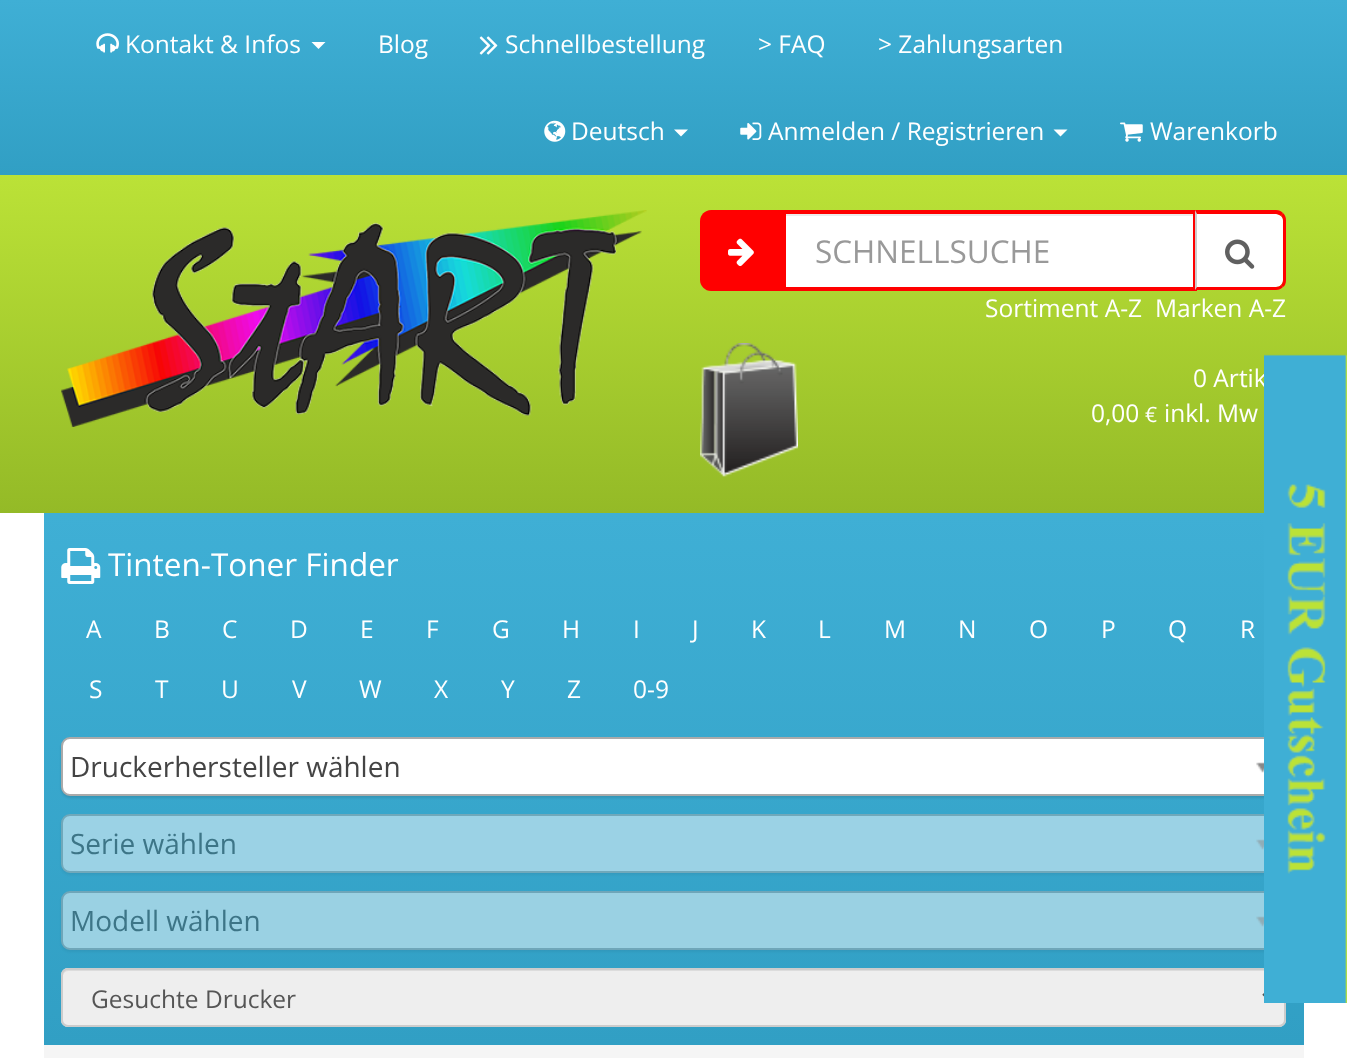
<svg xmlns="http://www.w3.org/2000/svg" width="1347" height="1058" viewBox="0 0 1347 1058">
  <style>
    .t1 { font: 24.5px Open Sans; fill: #fff; }
    .t2 { font: 31.5px Open Sans; fill: #999; }
    .t3 { font: 21px Open Sans; fill: #fff; }
    .t4 { font: 31.5px Open Sans; fill: #fff; }
    .t5 { font: 28px Open Sans; fill: #444; }
    .t6 { font: 28px Open Sans; fill: #3d7587; }
    .t7 { font: 24.5px Open Sans; fill: #555; }
  </style>
  <defs>
    <linearGradient id="g1" gradientUnits="userSpaceOnUse" x1="674" y1="0" x2="674" y2="175"><stop offset="0" stop-color="#3fafd5"/><stop offset="1" stop-color="#319fc4"/></linearGradient>
    <linearGradient id="g2" gradientUnits="userSpaceOnUse" x1="674" y1="175" x2="674" y2="513"><stop offset="0" stop-color="#bbe237"/><stop offset="1" stop-color="#94ba27"/></linearGradient>
    <linearGradient id="g3" gradientUnits="userSpaceOnUse" x1="674" y1="513" x2="674" y2="1045"><stop offset="0" stop-color="#3fafd5"/><stop offset="1" stop-color="#319fc4"/></linearGradient>
  </defs>
  <rect width="100%" height="100%" fill="#fff"/>
  <rect x="0" y="0" width="1347" height="175" fill="url(#g1)"/>
  <image x="96" y="33" width="23" height="20" href="images/1.png"/>
  <text x="125" y="53" class="t1">Kontakt &amp; Infos</text>
  <path d="M311.5 42H325.5L318.5 49Z" fill="#fff"/>
  <text x="378" y="53" class="t1">Blog</text>
  <image x="479" y="36" width="19" height="19" href="images/2.png"/>
  <text x="505" y="53" class="t1">Schnellbestellung</text>
  <text x="758" y="53" class="t1">&gt; FAQ</text>
  <text x="878" y="53" class="t1">&gt; Zahlungsarten</text>
  <image x="544" y="120" width="22" height="22" href="images/3.png"/>
  <text x="571" y="140" class="t1">Deutsch</text>
  <path d="M674 129.5H688L681 136.5Z" fill="#fff"/>
  <image x="740" y="122" width="22" height="18" href="images/4.png"/>
  <text x="768" y="140" class="t1">Anmelden / Registrieren</text>
  <path d="M1053.5 129.5H1067.5L1060.5 136.5Z" fill="#fff"/>
  <image x="1120" y="122" width="23" height="20" href="images/5.png"/>
  <text x="1150" y="140" class="t1">Warenkorb</text>
  <rect x="0" y="175" width="1347" height="338" fill="url(#g2)"/>
  <image x="61" y="210" width="586" height="217" href="images/6.png"/>
  <path d="M711 210H782V291H711C705 291 700 286 700 280V221C700 215 705 210 711 210Z" fill="#f00"/>
  <image x="728" y="238" width="26" height="29" href="images/7.png"/>
  <rect x="786" y="216" width="407" height="71" fill="#fff"/>
  <rect x="786" y="214" width="408" height="2" fill="#ececec"/>
  <rect x="784" y="212" width="411" height="77" fill="none" stroke="#f00" stroke-width="4"/>
  <text x="815" y="263" class="t2">SCHNELLSUCHE</text>
  <path d="M1197 214H1276C1280 214 1283 217 1283 221V280C1283 284 1280 287 1276 287H1197Z" fill="#fff"/>
  <path d="M1195 210L1197 214H1276C1278 214 1279 215 1281 216L1283 213C1281 211 1279 210 1276 210Z" fill="#f00"/>
  <path d="M1283 213C1285 215 1286 217 1286 220V280C1286 283 1285 286 1283 287L1281 285C1282 284 1283 282 1283 280V220C1283 218 1282 217 1281 216Z" fill="#f00"/>
  <path d="M1283 287C1281 289 1279 290 1276 290H1196L1197 287H1276C1278 287 1280 286 1281 285Z" fill="#f00"/>
  <path d="M1197 214V287L1195 290V210Z" fill="#ccc"/>
  <image x="1225" y="239" width="30" height="30" href="images/8.png"/>
  <text x="985" y="317" class="t1">Sortiment A-Z</text>
  <text x="1155" y="317" class="t1">Marken A-Z</text>
  <image x="700" y="343" width="98" height="134" href="images/9.png"/>
  <text x="1193" y="387" class="t1">0 Artik</text>
  <text x="1091" y="422" class="t1">0,00</text>
  <text x="1145" y="422" class="t3">€</text>
  <text x="1164" y="422" class="t1">inkl. Mw</text>
  <rect x="44" y="513" width="1260" height="532" fill="url(#g3)"/>
  <image x="61" y="548" width="40" height="36" href="images/10.png"/>
  <text x="108" y="576" class="t4">Tinten-Toner Finder</text>
  <text x="86" y="638" class="t1">A</text>
  <text x="154" y="638" class="t1">B</text>
  <text x="222" y="638" class="t1">C</text>
  <text x="290" y="638" class="t1">D</text>
  <text x="360" y="638" class="t1">E</text>
  <text x="426" y="638" class="t1">F</text>
  <text x="492" y="638" class="t1">G</text>
  <text x="562" y="638" class="t1">H</text>
  <text x="633" y="638" class="t1">I</text>
  <text x="692" y="638" class="t1">J</text>
  <text x="751" y="638" class="t1">K</text>
  <text x="818" y="638" class="t1">L</text>
  <text x="884" y="638" class="t1">M</text>
  <text x="958" y="638" class="t1">N</text>
  <text x="1029" y="638" class="t1">O</text>
  <text x="1101" y="638" class="t1">P</text>
  <text x="1168" y="638" class="t1">Q</text>
  <text x="1240" y="638" class="t1">R</text>
  <text x="89" y="698" class="t1">S</text>
  <text x="155" y="698" class="t1">T</text>
  <text x="221" y="698" class="t1">U</text>
  <text x="292" y="698" class="t1">V</text>
  <text x="359" y="698" class="t1">W</text>
  <text x="434" y="698" class="t1">X</text>
  <text x="501" y="698" class="t1">Y</text>
  <text x="567" y="698" class="t1">Z</text>
  <text x="633" y="698" class="t1">0-9</text>
  <rect x="61" y="739" width="1225" height="59" rx="9" fill="#0000001a" filter="blur(1px)"/>
  <rect x="62" y="738" width="1223" height="57" rx="8" fill="#fff" stroke="#aaa" stroke-width="2"/>
  <text x="70" y="777" class="t5">Druckerhersteller wählen</text>
  <image x="1256" y="762" width="8" height="11" href="images/11.png"/>
  <rect x="61" y="816" width="1225" height="59" rx="9" fill="#1b52651a" filter="blur(1px)"/>
  <rect x="62" y="815" width="1223" height="57" rx="8" fill="#9bd2e5" stroke="#70a8ba" stroke-width="2"/>
  <text x="70" y="854" class="t6">Serie wählen</text>
  <image x="1256" y="839" width="8" height="11" href="images/12.png"/>
  <rect x="61" y="893" width="1225" height="59" rx="9" fill="#1a51641a" filter="blur(1px)"/>
  <rect x="62" y="892" width="1223" height="57" rx="8" fill="#9ad1e3" stroke="#6fa6b9" stroke-width="2"/>
  <text x="70" y="931" class="t6">Modell wählen</text>
  <image x="1256" y="916" width="8" height="11" href="images/13.png"/>
  <rect x="61" y="968" width="1225" height="59" rx="7" fill="#eee"/>
  <path d="M68 971H1279C1282 971 1284 974 1284 976V1022L1283 1025C1284 1024 1285 1022 1285 1021V975C1285 972 1283 970 1280 970H68C65 970 63 972 63 975V976C63 974 65 971 68 971Z" fill="#dcdcdc"/>
  <rect x="62" y="969" width="1223" height="57" rx="6" fill="none" stroke="#ccc" stroke-width="2"/>
  <path d="M1263.5 993.5L1270.5 1000.5L1277.5 993.5" fill="none" stroke="#555" stroke-width="3.5"/>
  <text x="91" y="1008" class="t7">Gesuchte Drucker</text>
  <rect x="44" y="1045" width="1260" height="13" fill="#f5f5f5"/>
  <image x="1264" y="354" width="83" height="649" href="images/14.png"/>
</svg>
